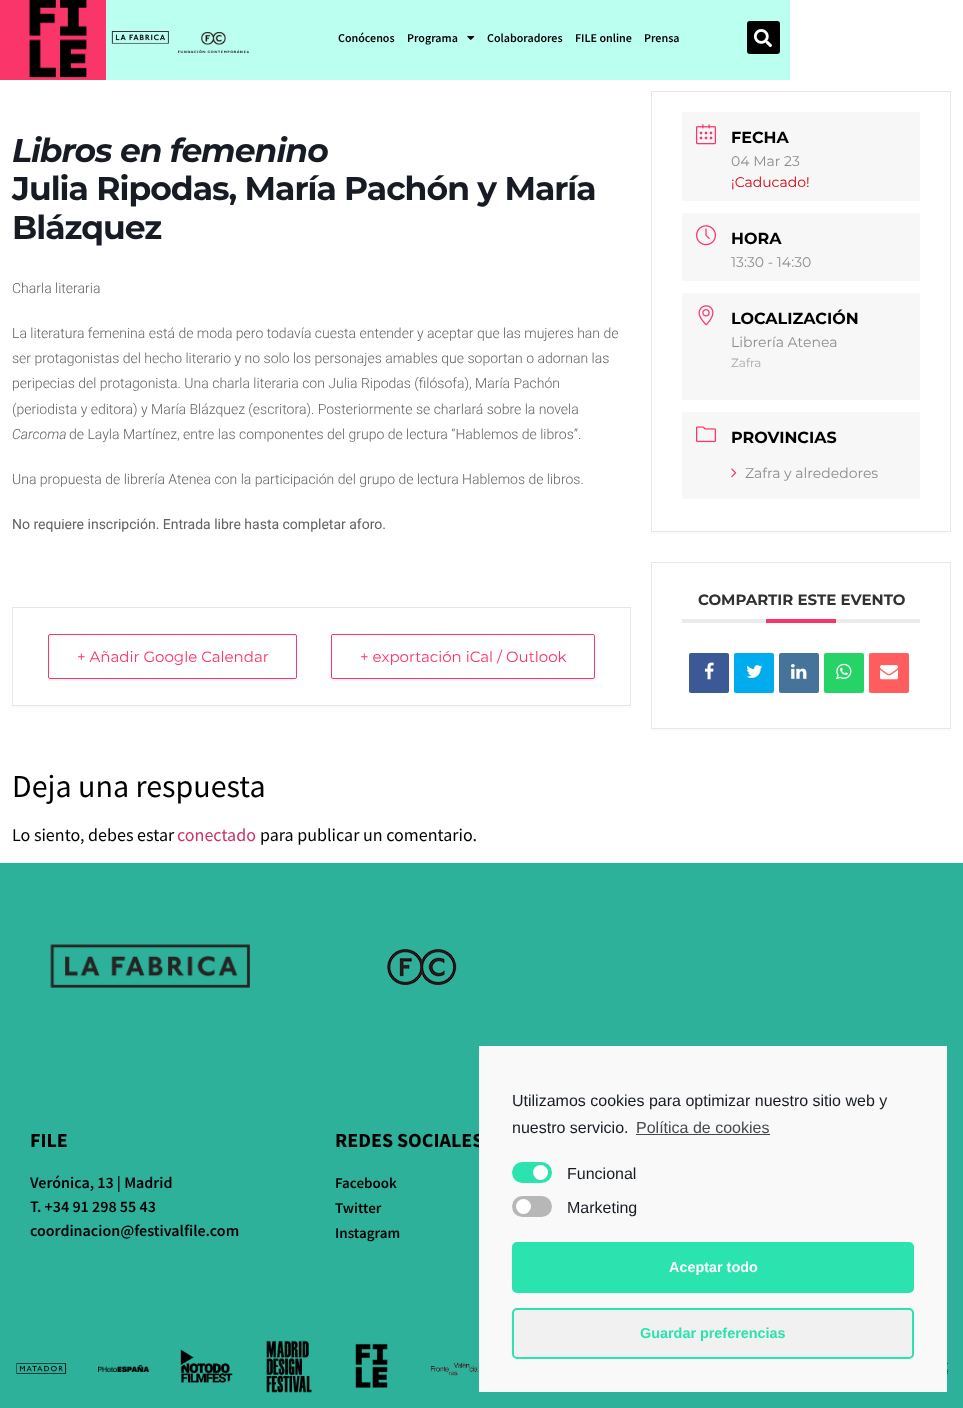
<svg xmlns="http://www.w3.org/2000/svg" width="963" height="1408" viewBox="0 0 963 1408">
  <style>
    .t1 { font: 600 12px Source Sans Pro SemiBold; fill: #000; }
    .t2 { font: italic bold 33px Montserrat; letter-spacing: -1px; fill: #171c24; }
    .t3 { font: bold 33px Montserrat; letter-spacing: -1px; fill: #171c24; }
    .t4 { font: 300 14px Roboto; fill: #616161; }
    .t5 { font: italic 300 14px Roboto; fill: #616161; }
    .t6 { font: 14px Roboto; fill: #616161; }
    .t7 { font: 15px Montserrat; fill: #fa3569; }
    .t8 { font: bold 16px Montserrat; fill: #000; }
    .t9 { font: 14px Montserrat; fill: #8d8d8d; }
    .t10 { font: 14px Montserrat; fill: #d8000c; }
    .t11 { font: 12px Montserrat; fill: #a9a9a9; }
    .t12 { font: bold 15px Montserrat; fill: #313131; }
    .t13 { font: 32px Source Sans Pro; fill: #000; }
    .t14 { font: 18px Source Sans Pro; fill: #000; }
    .t15 { font: 18px Source Sans Pro; fill: #c36; }
    .t16 { font: bold 20px Source Sans Pro; fill: #000; }
    .t17 { font: 600 16px Source Sans Pro SemiBold; fill: #000; }
    .t18 { font: 600 15px Source Sans Pro SemiBold; fill: #000; }
    .t19 { font: 16px Liberation Sans; fill: #171c24; }
    .t20 { font: 16px Liberation Sans; fill: #464a4e; }
    .t21 { font: bold 14.4px Liberation Sans; fill: #fff; }
    .t22 { font: bold 14.4px Liberation Sans; fill: #2ae3ae; }
  </style>
  <rect width="100%" height="100%" fill="#fff"/>
  <rect x="0" y="0" width="106" height="80" fill="#fa356a"/>
  <image x="29" y="0" width="58" height="78" href="images/1.png"/>
  <rect x="106" y="0" width="684" height="80" fill="#bafff0"/>
  <image x="111" y="31" width="58" height="13" href="images/2.png"/>
  <image x="178" y="32" width="71" height="21" href="images/3.png"/>
  <text x="338" y="42" class="t1">Conócenos</text>
  <text x="407" y="42" class="t1">Programa</text>
  <image x="467" y="36" width="8" height="4" href="images/4.png"/>
  <text x="487" y="42" class="t1">Colaboradores</text>
  <text x="575" y="42" class="t1">FILE online</text>
  <text x="644" y="42" class="t1">Prensa</text>
  <rect x="747" y="21" width="33" height="33" rx="3" fill="#000"/>
  <image x="753" y="29" width="19" height="19" href="images/5.png"/>
  <text x="12" y="162" class="t2">Libros en femenino</text>
  <text x="12" y="200" class="t3">Julia Ripodas, María Pachón y María</text>
  <text x="12" y="239" class="t3">Blázquez</text>
  <text x="12" y="293" class="t4">Charla literaria</text>
  <text x="12" y="338" class="t4">La literatura femenina está de moda pero todavía cuesta entender y aceptar que las mujeres han de</text>
  <text x="12" y="363" class="t4">ser protagonistas del hecho literario y no solo los personajes amables que soportan o adornan las</text>
  <text x="12" y="388" class="t4">peripecias del protagonista. Una charla literaria con Julia Ripodas (filósofa), María Pachón</text>
  <text x="12" y="414" class="t4">(periodista y editora) y María Blázquez (escritora). Posteriormente se charlará sobre la novela</text>
  <text x="12" y="439" class="t5">Carcoma</text>
  <text x="69" y="439" class="t4">de Layla Martínez, entre las componentes del grupo de lectura “Hablemos de libros”.</text>
  <text x="12" y="484" class="t4">Una propuesta de librería Atenea con la participación del grupo de lectura Hablemos de libros.</text>
  <text x="12" y="529" class="t6">No requiere inscripción. Entrada libre hasta completar aforo.</text>
  <rect x="12" y="706" width="619" height="2" fill="#fbfbfb"/>
  <rect x="12.5" y="607.5" width="618" height="98" fill="none" stroke="#e6e6e6"/>
  <path d="M48 677C48 679 48 681 50 681H295C297 681 297 679 297 677C297 678 296 679 295 679H50C49 679 48 678 48 677Z" fill="#f7f7f7"/>
  <rect x="48.5" y="634.5" width="248" height="44" rx="1.5" fill="none" stroke="#fa3569"/>
  <text x="77" y="662" class="t7">+ Añadir Google Calendar</text>
  <path d="M331 677V679C331 680 332 681 333 681H593C594 681 595 680 595 679V677C595 678 594 679 593 679H333C332 679 331 678 331 677Z" fill="#f7f7f7"/>
  <rect x="331.5" y="634.5" width="263" height="44" rx="1.5" fill="none" stroke="#fa3569"/>
  <text x="360" y="662" class="t7">+ exportación iCal / Outlook</text>
  <rect x="651" y="532" width="300" height="2" fill="#fbfbfb"/>
  <rect x="651.5" y="91.5" width="299" height="440" fill="none" stroke="#e6e6e6"/>
  <rect x="682" y="112" width="238" height="89" fill="#f7f7f7"/>
  <image x="696" y="124" width="20" height="21" href="images/6.png"/>
  <text x="731" y="143" class="t8">FECHA</text>
  <text x="731" y="166" class="t9">04 Mar 23</text>
  <text x="731" y="187" class="t10">¡Caducado!</text>
  <rect x="682" y="213" width="238" height="68" fill="#f7f7f7"/>
  <image x="696" y="225" width="20" height="21" href="images/7.png"/>
  <text x="731" y="244" class="t8">HORA</text>
  <text x="731" y="267" class="t9">13:30 - 14:30</text>
  <rect x="682" y="293" width="238" height="107" fill="#f7f7f7"/>
  <image x="698" y="305" width="16" height="21" href="images/8.png"/>
  <text x="731" y="324" class="t8">LOCALIZACIÓN</text>
  <text x="731" y="347" class="t9">Librería Atenea</text>
  <text x="731" y="367" class="t11">Zafra</text>
  <rect x="682" y="412" width="238" height="87" fill="#f7f7f7"/>
  <image x="696" y="426" width="20" height="17" href="images/9.png"/>
  <text x="731" y="443" class="t8">PROVINCIAS</text>
  <image x="731" y="468" width="6" height="10" href="images/10.png"/>
  <text x="745" y="478" class="t9">Zafra y alrededores</text>
  <rect x="651" y="729" width="300" height="2" fill="#fbfbfb"/>
  <rect x="651.5" y="562.5" width="299" height="166" fill="none" stroke="#e6e6e6"/>
  <rect x="682" y="619" width="238" height="4" fill="#ebebeb"/>
  <text x="698" y="605" class="t12">COMPARTIR ESTE EVENTO</text>
  <rect x="766" y="619" width="70" height="4" fill="#fa3569"/>
  <rect x="689" y="653" width="40" height="40" rx="2" fill="#3b5996"/>
  <image x="704" y="662" width="10" height="18" href="images/11.png"/>
  <rect x="734" y="653" width="40" height="40" rx="2" fill="#00acee"/>
  <image x="746" y="665" width="17" height="13" href="images/12.png"/>
  <rect x="779" y="653" width="40" height="40" rx="2" fill="#457399"/>
  <image x="791" y="664" width="16" height="15" href="images/13.png"/>
  <rect x="824" y="653" width="40" height="40" rx="2" fill="#25d366"/>
  <image x="836" y="663" width="16" height="17" href="images/14.png"/>
  <rect x="869" y="653" width="40" height="40" rx="2" fill="#ff5d5e"/>
  <image x="880" y="665" width="18" height="15" href="images/15.png"/>
  <text x="12" y="797" class="t13">Deja una respuesta</text>
  <text x="12" y="841" class="t14">Lo siento, debes estar</text>
  <text x="177" y="841" class="t15">conectado</text>
  <text x="260" y="841" class="t14">para publicar un comentario.</text>
  <rect x="0" y="863" width="963" height="545" fill="#2db19a"/>
  <image x="50" y="944" width="200" height="44" href="images/16.png"/>
  <image x="387" y="949" width="70" height="37" href="images/17.png"/>
  <text x="30" y="1147" class="t16">FILE</text>
  <text x="30" y="1188" class="t17">Verónica, 13 | Madrid</text>
  <text x="30" y="1212" class="t17">T. +34 91 298 55 43</text>
  <text x="30" y="1236" class="t17">coordinacion@festivalfile.com</text>
  <text x="335" y="1147" class="t16">REDES SOCIALES</text>
  <text x="335" y="1188" class="t18">Facebook</text>
  <text x="335" y="1213" class="t18">Twitter</text>
  <text x="335" y="1238" class="t18">Instagram</text>
  <image x="16" y="1363" width="51" height="11" href="images/18.png"/>
  <image x="98" y="1365" width="52" height="7" href="images/19.png"/>
  <image x="180" y="1349" width="53" height="34" href="images/20.png"/>
  <image x="266" y="1340" width="46" height="53" href="images/21.png"/>
  <image x="355" y="1343" width="33" height="45" href="images/22.png"/>
  <image x="430" y="1362" width="48" height="14" href="images/23.png"/>
  <image x="947" y="1363" width="1" height="11" href="images/24.png"/>
  <rect x="479" y="1046" width="468" height="346" fill="#f9f9f9"/>
  <text x="512" y="1106" class="t19">Utilizamos cookies para optimizar nuestro sitio web y</text>
  <text x="512" y="1133" class="t19">nuestro servicio.</text>
  <text x="636" y="1133" class="t20">Política de cookies</text>
  <rect x="636" y="1134" width="134" height="1" fill="#464a4e"/>
  <rect x="512" y="1162" width="40" height="21" rx="10.5" fill="#2ae3ae"/>
  <circle cx="540.5" cy="1172.5" r="7.5" fill="#fff"/>
  <text x="567" y="1179" class="t19">Funcional</text>
  <rect x="512" y="1196" width="40" height="21" rx="10.5" fill="#b7b7b7"/>
  <circle cx="523.5" cy="1206.5" r="7.5" fill="#fff"/>
  <text x="567" y="1213" class="t19">Marketing</text>
  <rect x="513" y="1243" width="400" height="49" rx="4" fill="#2ae3ae" stroke="#2ae3ae" stroke-width="2"/>
  <text x="669" y="1272" class="t21">Aceptar todo</text>
  <rect x="513" y="1309" width="400" height="49" rx="4" fill="#f1f1f1" stroke="#2ae3ae" stroke-width="2"/>
  <text x="640" y="1338" class="t22">Guardar preferencias</text>
</svg>
